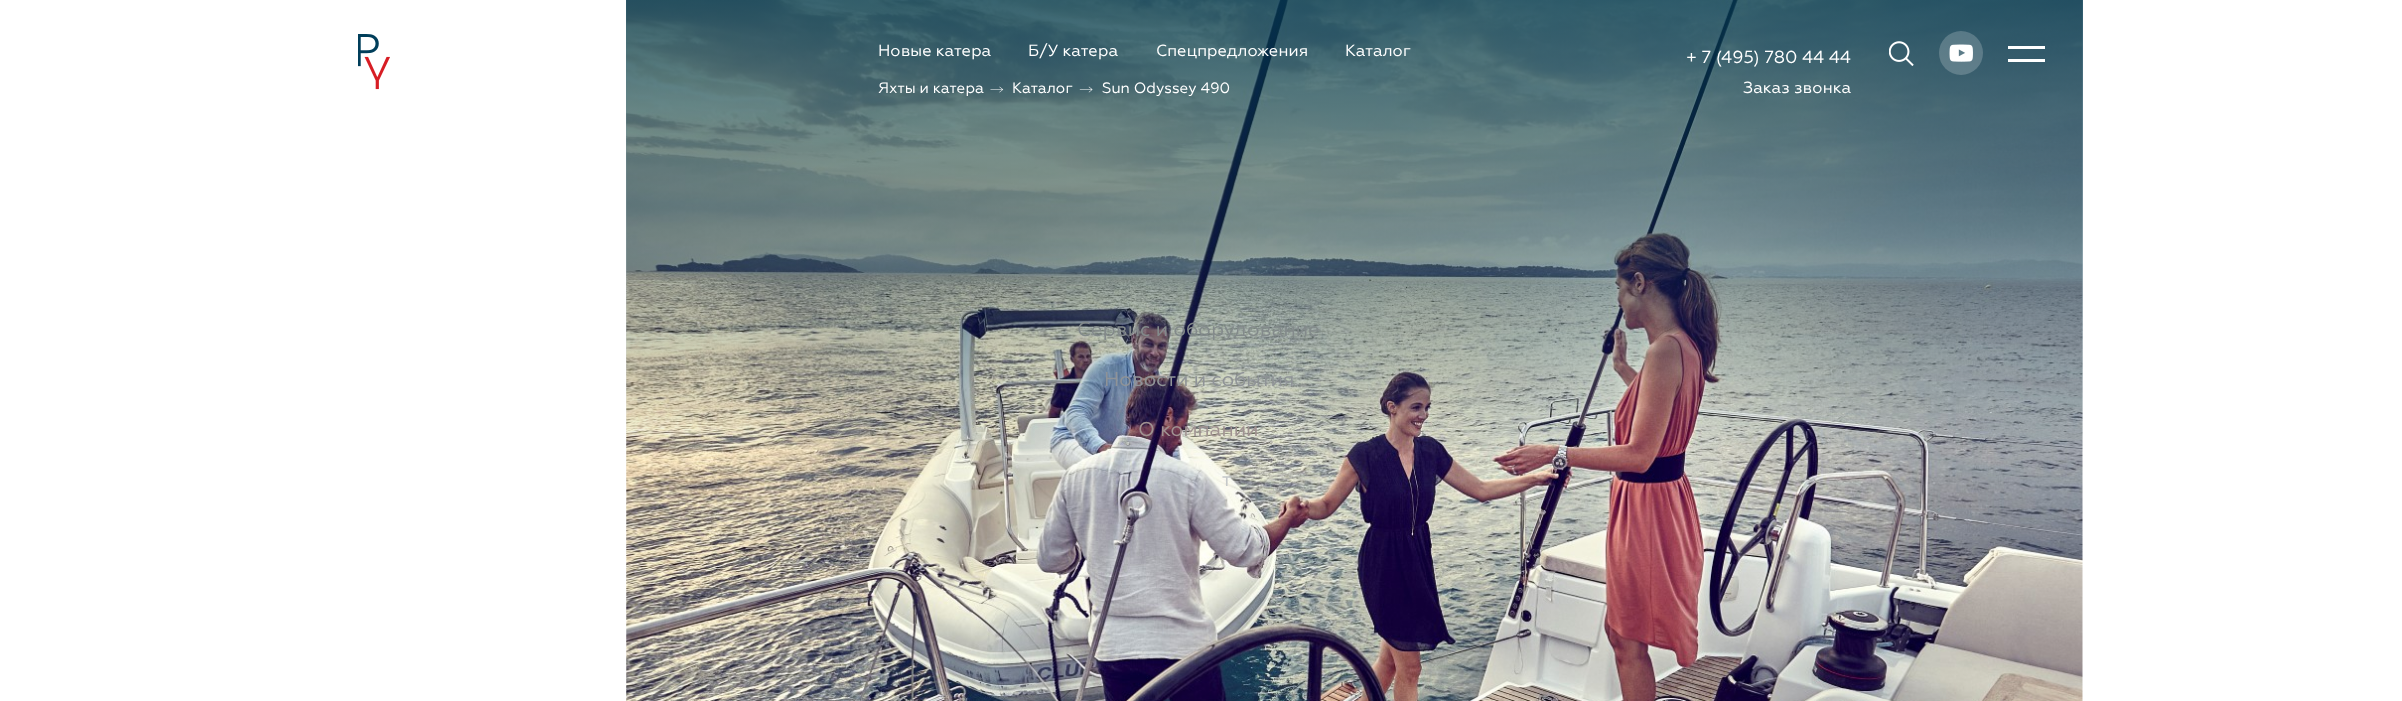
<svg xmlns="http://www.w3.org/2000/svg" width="2402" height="701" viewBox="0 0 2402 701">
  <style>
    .t1 { font: 16.25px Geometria; fill: #fff; }
    .t2 { font: 15px Geometria; fill: #fff; }
    .t3 { font: 17.5px Geometria; fill: #fff; }
    .t4 { font: 20px Geometria; fill: #838a8b; }
    .t5 { font: 20px Geometria; fill: #8f9397; }
    .t6 { font: 20px Geometria; fill: #a09291; }
    .t7 { font: 20px Geometria; fill: #c5c8c9; }
  </style>
  <defs>
    <linearGradient id="g1" gradientUnits="userSpaceOnUse" x1="1354" y1="0" x2="1354" y2="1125"><stop offset="0" stop-color="#063d54" stop-opacity="0.8"/><stop offset="0.41" stop-color="#063d54" stop-opacity="0"/></linearGradient>
  </defs>
  <rect width="100%" height="100%" fill="#fff"/>
  <image x="626" y="0" width="1457" height="701" href="images/1.png"/>
  <rect x="626" y="0" width="1457" height="449" fill="url(#g1)"/>
  <image x="358" y="34" width="32" height="56" href="images/2.png"/>
  <text x="878" y="56" class="t1">Новые катера</text>
  <text x="1028" y="56" class="t1">Б/У катера</text>
  <text x="1156" y="56" class="t1">Спецпредложения</text>
  <text x="1345" y="56" class="t1">Каталог</text>
  <text x="878" y="93" class="t2">Яхты и катера</text>
  <image x="990" y="86" width="14" height="7" href="images/3.png"/>
  <text x="1012" y="93" class="t2">Каталог</text>
  <image x="1079" y="86" width="14" height="7" href="images/4.png"/>
  <text x="1102" y="93" class="t2">Sun Odyssey 490</text>
  <text x="1686" y="63" class="t3">+ 7 (495) 780 44 44</text>
  <text x="1743" y="93" class="t1">Заказ звонка</text>
  <image x="1889" y="41" width="25" height="25" href="images/5.png"/>
  <circle cx="1961" cy="53" r="22" fill="#ffffff33"/>
  <image x="1949" y="44" width="24" height="18" href="images/6.png"/>
  <rect x="2008" y="46" width="37" height="3" fill="#fff"/>
  <rect x="2008" y="59" width="37" height="3" fill="#fff"/>
  <text x="1077" y="336" class="t4">Сервис и оборудование</text>
  <text x="1104" y="386" class="t5">Новости и события</text>
  <text x="1138" y="436" class="t6">О компании</text>
  <text x="1222" y="486" class="t7">т</text>
</svg>
